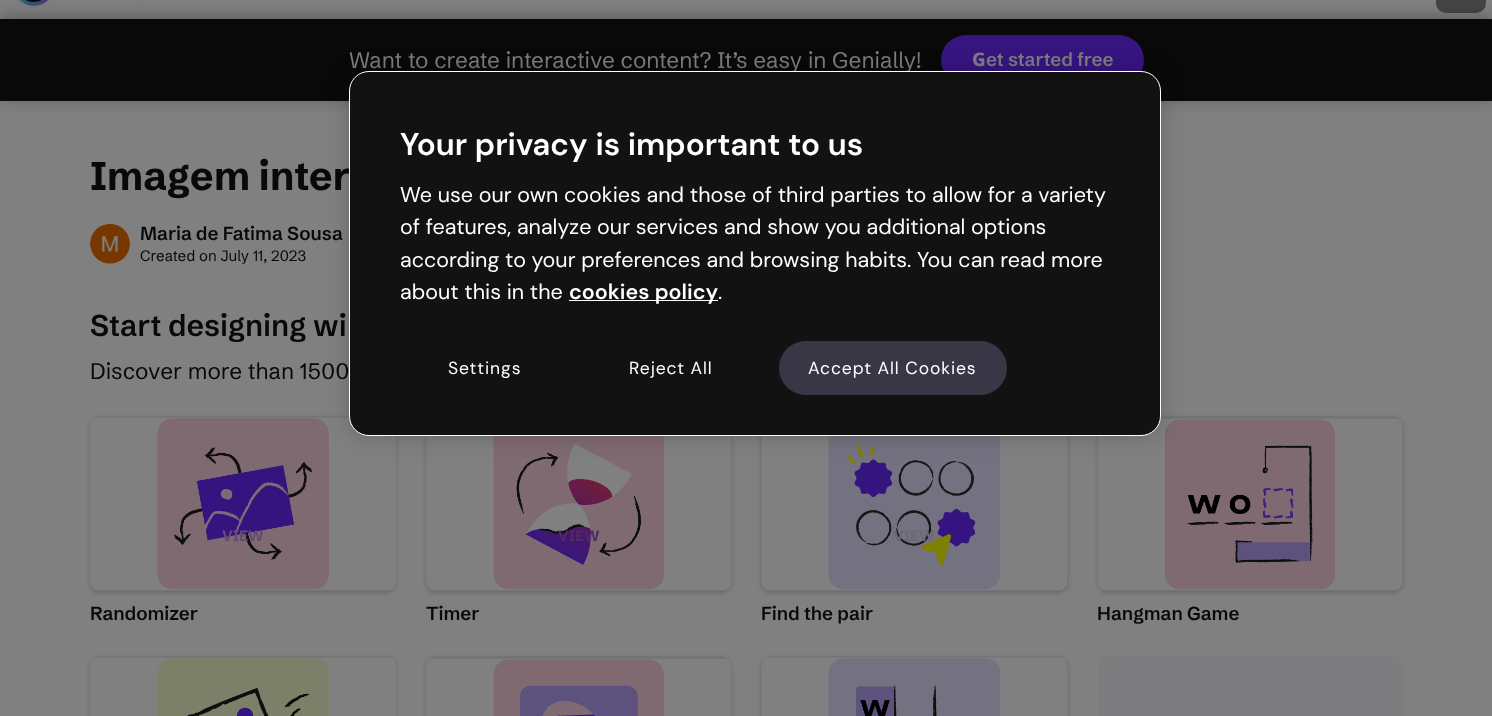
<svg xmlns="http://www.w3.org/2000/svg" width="1492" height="716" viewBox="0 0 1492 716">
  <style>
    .t1 { font: 22.5px Schibsted Grotesk; fill: #7d7c7e; }
    .t2 { font: 800 18.75px Noto Sans; fill: #7d7c7e; }
    .t3 { font: 600 18.75px Schibsted Grotesk; fill: #7d7c7e; }
    .t4 { font: bold 40px Schibsted Grotesk; fill: #090909; }
    .t5 { font: 600 18.75px Schibsted Grotesk; fill: #090909; }
    .t6 { font: 15px Schibsted Grotesk; fill: #090909; }
    .t7 { font: 600 30px Schibsted Grotesk; fill: #090909; }
    .t8 { font: 22.5px Schibsted Grotesk; fill: #090909; }
    .t9 { font: bold 15px Schibsted Grotesk; fill: #644a75; }
    .t10 { font: bold 15px Schibsted Grotesk; fill: #512a67; }
    .t11 { font: bold 15px Schibsted Grotesk; fill: #6b6976; }
    .t12 { font: 600 31.5px DM Sans; fill: #fff; }
    .t13 { font: 21.5px DM Sans; fill: #fff; }
    .t14 { font: 600 21.5px DM Sans; fill: #fff; }
    .t15 { font: 17.5px DM Sans; letter-spacing: 0.9px; fill: #fff; }
  </style>
  <rect width="100%" height="100%" fill="#808080"/>
  <image x="16" y="0" width="129" height="8" href="images/1.png"/>
  <rect x="1436" y="-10" width="50" height="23" rx="10" fill="#454545"/>
  <rect x="0" y="16" width="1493" height="83" fill="#0909094d" filter="blur(8px)"/>
  <rect x="0" y="19" width="1492" height="82" fill="#090909"/>
  <text x="349" y="68" class="t1">Want to create interactive content? It’s easy in Genially!</text>
  <rect x="941" y="35" width="203" height="50" rx="25" fill="#361580"/>
  <text x="972" y="66" class="t2">G</text>
  <text x="986" y="66" class="t3">et started free</text>
  <text x="90" y="190" class="t4">Imagem inter</text>
  <image x="90" y="223" width="40" height="41" href="images/2.png"/>
  <text x="140" y="240" class="t5">Maria de Fatima Sousa</text>
  <text x="140" y="261" class="t6">Created on July 11, 2023</text>
  <text x="90" y="336" class="t7">Start designing wi</text>
  <text x="90" y="379" class="t8">Discover more than 1500</text>
  <rect x="90" y="418" width="306" height="175" rx="10" fill="#09090933" filter="blur(2.5px)"/>
  <rect x="90" y="416" width="306" height="175" rx="10" fill="#747378"/>
  <image x="90" y="417" width="306" height="173" href="images/3.png"/>
  <text x="222" y="541" class="t9">VIEW</text>
  <text x="90" y="620" class="t5">Randomizer</text>
  <rect x="426" y="418" width="305" height="175" rx="10" fill="#09090933" filter="blur(2.5px)"/>
  <rect x="426" y="416" width="305" height="175" rx="10" fill="#747378"/>
  <image x="426" y="436" width="305" height="154" href="images/4.png"/>
  <text x="558" y="541" class="t10">VIEW</text>
  <text x="426" y="620" class="t5">Timer</text>
  <rect x="761" y="418" width="307" height="175" rx="10" fill="#09090933" filter="blur(2.5px)"/>
  <rect x="761" y="416" width="307" height="175" rx="10" fill="#747378"/>
  <image x="761" y="436" width="307" height="154" href="images/5.png"/>
  <text x="893" y="541" class="t11">VIEW</text>
  <text x="761" y="620" class="t5">Find the pair</text>
  <rect x="1098" y="418" width="305" height="175" rx="10" fill="#09090933" filter="blur(2.5px)"/>
  <rect x="1098" y="416" width="305" height="175" rx="10" fill="#747378"/>
  <image x="1098" y="418" width="305" height="172" href="images/6.png"/>
  <text x="1097" y="620" class="t5">Hangman Game</text>
  <rect x="90" y="658" width="306" height="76" rx="10" fill="#09090933" filter="blur(2.5px)"/>
  <rect x="90" y="656" width="306" height="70" rx="10" fill="#747378"/>
  <image x="90" y="657" width="306" height="59" href="images/7.png"/>
  <rect x="426" y="658" width="305" height="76" rx="10" fill="#09090933" filter="blur(2.5px)"/>
  <rect x="426" y="656" width="305" height="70" rx="10" fill="#747378"/>
  <image x="426" y="658" width="305" height="58" href="images/8.png"/>
  <rect x="761" y="658" width="307" height="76" rx="10" fill="#09090933" filter="blur(2.5px)"/>
  <rect x="761" y="656" width="307" height="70" rx="10" fill="#747378"/>
  <image x="761" y="657" width="307" height="59" href="images/9.png"/>
  <rect x="1098" y="656" width="305" height="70" rx="10" fill="#7d7c7e"/>
  <rect x="349" y="71" width="812" height="365" rx="20" fill="#00000033" filter="blur(11px)"/>
  <rect x="349.5" y="71.5" width="811" height="364" rx="19.5" fill="#121212" stroke="#fff"/>
  <text x="400" y="155" class="t12">Your privacy is important to us</text>
  <text x="400" y="202" class="t13">We use our own cookies and those of third parties to allow for a variety</text>
  <text x="400" y="234" class="t13">of features, analyze our services and show you additional options</text>
  <text x="400" y="267" class="t13">according to your preferences and browsing habits. You can read more</text>
  <text x="400" y="299" class="t13">about this in the</text>
  <rect x="569" y="300" width="149" height="1" fill="#fff"/>
  <text x="569" y="299" class="t14">cookies policy</text>
  <text x="718" y="299" class="t13">.</text>
  <text x="448" y="374" class="t15">Settings</text>
  <text x="629" y="374" class="t15">Reject All</text>
  <rect x="778.5" y="340.5" width="229" height="55" rx="27.5" fill="#393645" stroke="#121212"/>
  <text x="808" y="374" class="t15">Accept All Cookies</text>
</svg>
